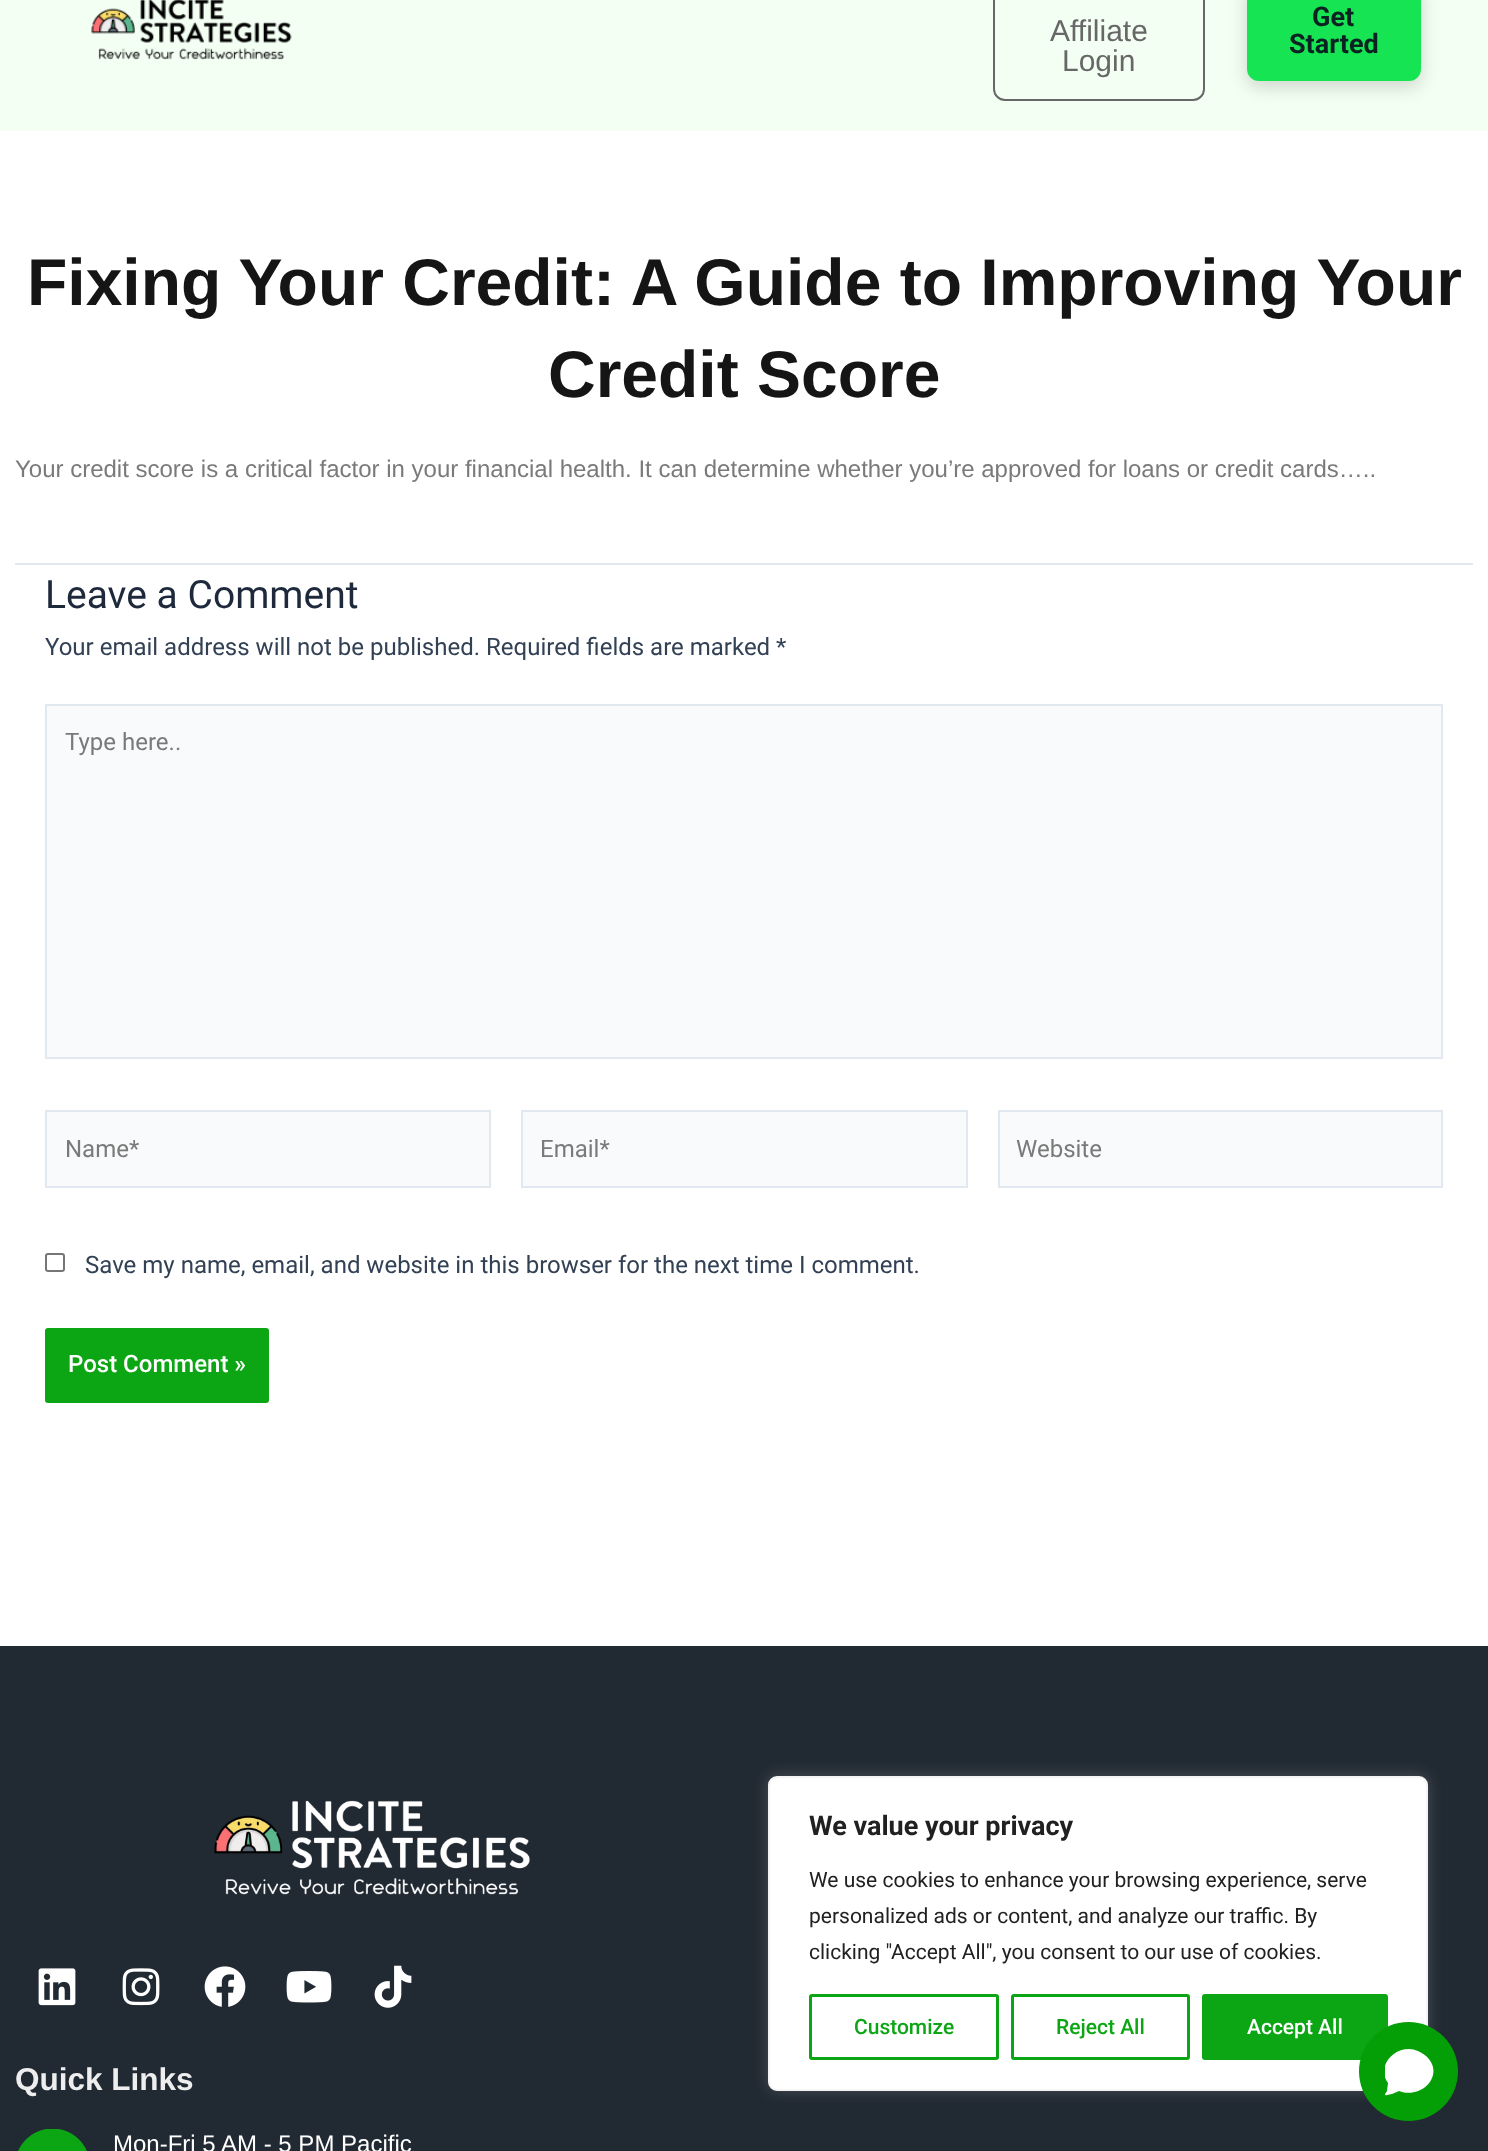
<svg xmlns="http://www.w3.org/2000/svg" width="1488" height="2151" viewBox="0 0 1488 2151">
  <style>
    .t1 { font: 30px Liberation Sans; fill: #676767; }
    .t2 { font: bold 27px Roboto; fill: #0b2223; }
    .t3 { font: bold 66px Liberation Sans; fill: #151515; }
    .t4 { font: 24px Liberation Sans; fill: #7a7a7a; }
    .t5 { font: 39px Roboto; fill: #1e293b; }
    .t6 { font: 24px Roboto; fill: #334155; }
    .t7 { font: 24px Roboto; fill: #7a7a7a; }
    .t8 { font: 500 24px Roboto; fill: #fff; }
    .t9 { font: bold 31.5px Liberation Sans; fill: #eee; }
    .t10 { font: 24px Liberation Sans; fill: #fff; }
    .t11 { font: bold 27px Roboto; fill: #212121; }
    .t12 { font: 21px Roboto; fill: #212121; }
    .t13 { font: 500 21px Roboto; fill: #0ca614; }
    .t14 { font: 500 21px Roboto; fill: #fff; }
  </style>
  <defs>
    <clipPath id="clip1"><rect x="1385" y="2048" width="49" height="49"/></clipPath>
  </defs>
  <rect width="100%" height="100%" fill="#fff"/>
  <rect x="0" y="0" width="1488" height="131" fill="#f4fff4"/>
  <image x="91" y="0" width="201" height="60" href="images/1.png"/>
  <rect x="994" y="-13" width="210" height="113" rx="11" fill="none" stroke="#676767" stroke-width="2"/>
  <text x="1050" y="41" class="t1">Affiliate</text>
  <text x="1062" y="71" class="t1">Login</text>
  <rect x="1247" y="-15" width="174" height="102" rx="12" fill="#00000029" filter="blur(9px)"/>
  <rect x="1247" y="-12" width="174" height="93" rx="12" fill="#17e452"/>
  <text x="1312" y="26" class="t2">Get</text>
  <text x="1289" y="53" class="t2">Started</text>
  <text x="27" y="305" class="t3">Fixing Your Credit: A Guide to Improving Your</text>
  <text x="548" y="397" class="t3">Credit Score</text>
  <text x="15" y="477" class="t4">Your credit score is a critical factor in your financial health. It can determine whether you’re approved for loans or credit cards…..</text>
  <rect x="15" y="563" width="1458" height="2" fill="#e2e8f0"/>
  <text x="45" y="608" class="t5">Leave a Comment</text>
  <text x="45" y="655" class="t6">Your email address will not be published. Required fields are marked *</text>
  <rect x="46" y="705" width="1396" height="353" fill="#f9fafb" stroke="#e2e8f0" stroke-width="2"/>
  <text x="65" y="750" class="t7">Type here..</text>
  <rect x="46" y="1111" width="444" height="76" fill="#f9fafb" stroke="#e2e8f0" stroke-width="2"/>
  <text x="65" y="1157" class="t7">Name*</text>
  <rect x="522" y="1111" width="445" height="76" fill="#f9fafb" stroke="#e2e8f0" stroke-width="2"/>
  <text x="540" y="1157" class="t7">Email*</text>
  <rect x="999" y="1111" width="443" height="76" fill="#f9fafb" stroke="#e2e8f0" stroke-width="2"/>
  <text x="1016" y="1157" class="t7">Website</text>
  <rect x="46" y="1254" width="18" height="17" rx="2" fill="none" stroke="#767676" stroke-width="2"/>
  <text x="85" y="1273" class="t6">Save my name, email, and website in this browser for the next time I comment.</text>
  <rect x="45" y="1328" width="224" height="75" rx="3" fill="#0ca614"/>
  <text x="68" y="1372" class="t8">Post Comment »</text>
  <rect x="0" y="1646" width="1488" height="505" fill="#212932"/>
  <image x="214" y="1800" width="316" height="95" href="images/2.png"/>
  <image x="38" y="1968" width="38" height="38" href="images/3.png"/>
  <image x="122" y="1968" width="38" height="38" href="images/4.png"/>
  <image x="204" y="1966" width="42" height="41" href="images/5.png"/>
  <image x="286" y="1971" width="46" height="32" href="images/6.png"/>
  <image x="374" y="1965" width="38" height="43" href="images/7.png"/>
  <text x="15" y="2090" class="t9">Quick Links</text>
  <image x="18" y="2129" width="69" height="22" href="images/8.png"/>
  <text x="113" y="2152" class="t10">Mon-Fri 5 AM - 5 PM Pacific</text>
  <rect x="768" y="1775" width="660" height="315" rx="9" fill="#acabab4d" filter="blur(7.5px)"/>
  <rect x="769" y="1777" width="658" height="313" rx="8" fill="#fff" stroke="#f4f4f4" stroke-width="2"/>
  <text x="809" y="1835" class="t11">We value your privacy</text>
  <text x="809" y="1887" class="t12">We use cookies to enhance your browsing experience, serve</text>
  <text x="809" y="1923" class="t12">personalized ads or content, and analyze our traffic. By</text>
  <text x="809" y="1959" class="t12">clicking "Accept All", you consent to our use of cookies.</text>
  <rect x="810.5" y="1995.5" width="187" height="63" rx="1.5" fill="none" stroke="#0ca614" stroke-width="3"/>
  <text x="854" y="2034" class="t13">Customize</text>
  <rect x="1012.5" y="1995.5" width="176" height="63" rx="1.5" fill="none" stroke="#0ca614" stroke-width="3"/>
  <text x="1056" y="2034" class="t13">Reject All</text>
  <rect x="1203.5" y="1995.5" width="183" height="63" rx="1.5" fill="#0ca614" stroke="#0ca614" stroke-width="3"/>
  <text x="1247" y="2034" class="t14">Accept All</text>
  <circle cx="1408.5" cy="2071.5" r="49.5" fill="#049f07"/>
  <g clip-path="url(#clip1)">
    <path d="M1409 2049C1391 2049 1377 2068 1388 2083L1387 2091C1386 2093 1383 2096 1387 2095L1392 2094L1399 2091C1422 2100 1446 2074 1426 2056C1421 2052 1415 2049 1409 2049Z" fill="#fff"/>
  </g>
</svg>
